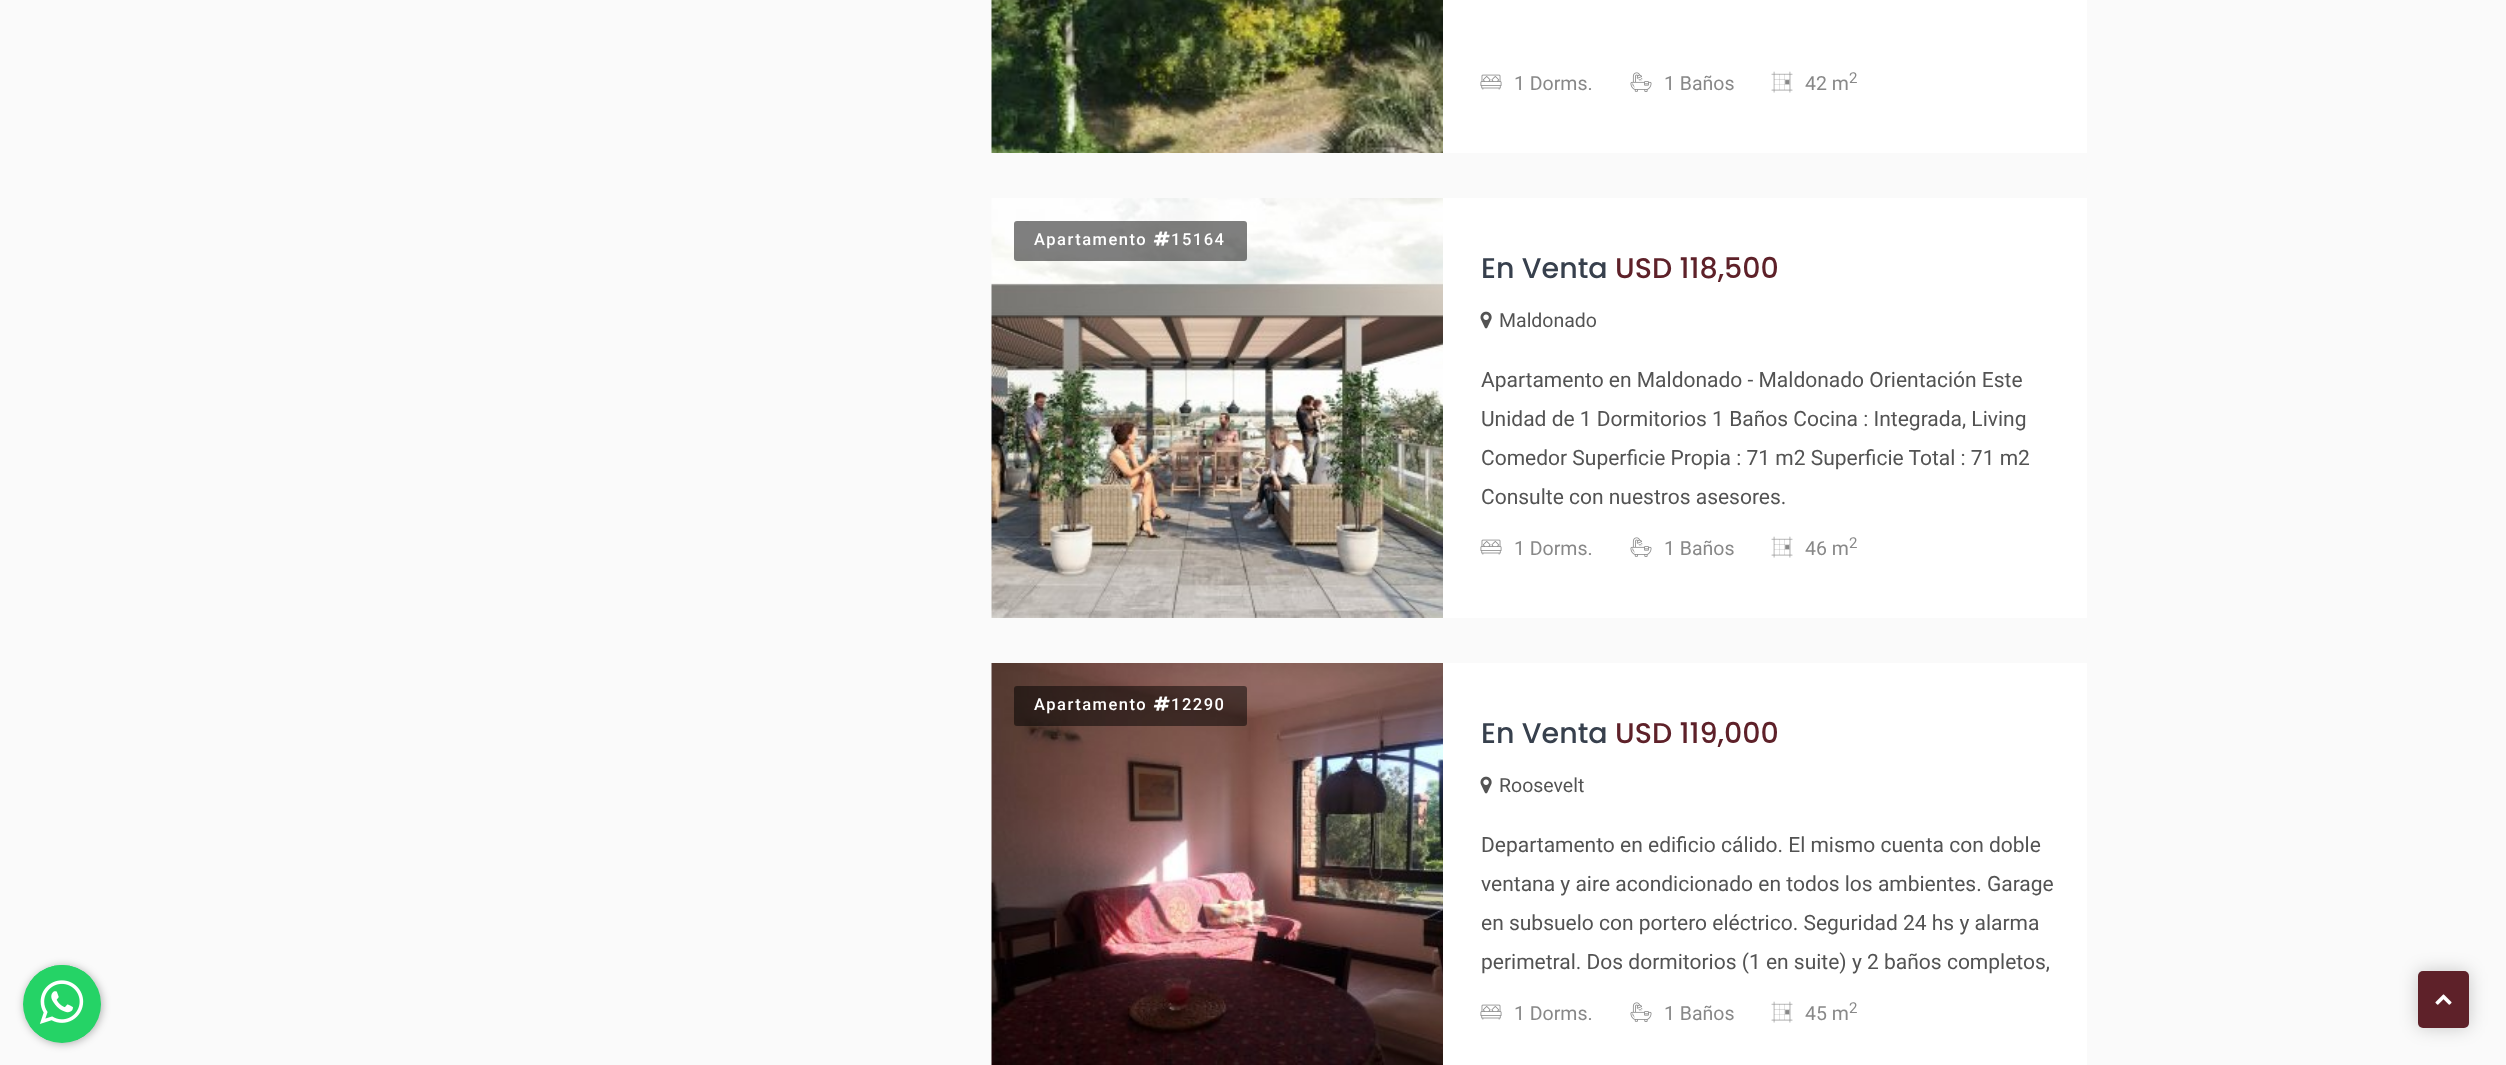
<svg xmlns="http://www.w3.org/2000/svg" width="2506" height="1065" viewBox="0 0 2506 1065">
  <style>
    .t1 { font: 19.5px Roboto; fill: #888; }
    .t2 { font: 15px Roboto; fill: #888; }
    .t3 { font: 500 16.5px Roboto; letter-spacing: 1.5px; fill: #fff; }
    .t4 { font: 500 28.5px Poppins; fill: #37404d; }
    .t5 { font: 500 28.5px Poppins; fill: #5e2129; }
    .t6 { font: 19.5px Roboto; fill: #535353; }
    .t7 { font: 21px Roboto; fill: #535353; }
  </style>
  <defs>
    <clipPath id="clip1"><rect x="23" y="965" width="78" height="78" rx="39"/></clipPath>
  </defs>
  <rect width="100%" height="100%" fill="#fafafa"/>
  <rect x="24" y="966" width="78" height="78" rx="39" fill="#0000004d" filter="blur(4.5px)"/>
  <circle cx="62" cy="1004" r="39" fill="#25d366"/>
  <g clip-path="url(#clip1)">
    <rect x="30" y="965" width="63" height="75" fill="#25d366"/>
  </g>
  <image x="39" y="980" width="45" height="44" href="images/1.png"/>
  <rect x="1443" y="0" width="644" height="153" fill="#fff"/>
  <image x="991" y="0" width="452" height="153" href="images/2.png"/>
  <image x="1480" y="74" width="22" height="16" href="images/3.png"/>
  <text x="1514" y="90" class="t1">1 Dorms.</text>
  <image x="1630" y="72" width="22" height="20" href="images/4.png"/>
  <text x="1664" y="90" class="t1">1 Baños</text>
  <image x="1771" y="71" width="22" height="22" href="images/5.png"/>
  <text x="1805" y="90" class="t1">42 m</text>
  <text x="1849" y="83" class="t2">2</text>
  <rect x="1443" y="198" width="644" height="420" fill="#fff"/>
  <image x="991" y="198" width="452" height="420" href="images/6.png"/>
  <rect x="1014" y="221" width="233" height="40" rx="3" fill="#00000080"/>
  <text x="1034" y="245" class="t3">Apartamento</text>
  <image x="1153" y="231" width="17" height="15" href="images/7.png"/>
  <text x="1171" y="245" class="t3">15164</text>
  <text x="1481" y="278" class="t4">En Venta</text>
  <text x="1615" y="278" class="t5">USD 118,500</text>
  <image x="1480" y="311" width="12" height="18" href="images/8.png"/>
  <text x="1499" y="327" class="t6">Maldonado</text>
  <text x="1481" y="387" class="t7">Apartamento en Maldonado - Maldonado Orientación Este</text>
  <text x="1481" y="426" class="t7">Unidad de 1 Dormitorios 1 Baños Cocina : Integrada, Living</text>
  <text x="1481" y="465" class="t7">Comedor Superficie Propia : 71 m2 Superficie Total : 71 m2</text>
  <text x="1481" y="504" class="t7">Consulte con nuestros asesores.</text>
  <image x="1480" y="539" width="22" height="16" href="images/3.png"/>
  <text x="1514" y="555" class="t1">1 Dorms.</text>
  <image x="1630" y="537" width="22" height="20" href="images/4.png"/>
  <text x="1664" y="555" class="t1">1 Baños</text>
  <image x="1771" y="536" width="22" height="22" href="images/5.png"/>
  <text x="1805" y="555" class="t1">46 m</text>
  <text x="1849" y="548" class="t2">2</text>
  <rect x="1443" y="663" width="644" height="402" fill="#fff"/>
  <image x="991" y="663" width="452" height="402" href="images/9.png"/>
  <rect x="1014" y="686" width="233" height="40" rx="3" fill="#00000080"/>
  <text x="1034" y="710" class="t3">Apartamento</text>
  <image x="1153" y="696" width="17" height="15" href="images/10.png"/>
  <text x="1171" y="710" class="t3">12290</text>
  <text x="1481" y="743" class="t4">En Venta</text>
  <text x="1615" y="743" class="t5">USD 119,000</text>
  <image x="1480" y="776" width="12" height="18" href="images/8.png"/>
  <text x="1499" y="792" class="t6">Roosevelt</text>
  <text x="1481" y="852" class="t7">Departamento en edificio cálido. El mismo cuenta con doble</text>
  <text x="1481" y="891" class="t7">ventana y aire acondicionado en todos los ambientes. Garage</text>
  <text x="1481" y="930" class="t7">en subsuelo con portero eléctrico. Seguridad 24 hs y alarma</text>
  <text x="1481" y="969" class="t7">perimetral. Dos dormitorios (1 en suite) y 2 baños completos,</text>
  <image x="1480" y="1004" width="22" height="16" href="images/3.png"/>
  <text x="1514" y="1020" class="t1">1 Dorms.</text>
  <image x="1630" y="1002" width="22" height="20" href="images/4.png"/>
  <text x="1664" y="1020" class="t1">1 Baños</text>
  <image x="1771" y="1001" width="22" height="22" href="images/5.png"/>
  <text x="1805" y="1020" class="t1">45 m</text>
  <text x="1849" y="1013" class="t2">2</text>
  <rect x="2418" y="971" width="51" height="57" rx="5" fill="#00000033" filter="blur(9px)"/>
  <rect x="2418" y="971" width="51" height="57" rx="5" fill="#5e2129"/>
  <image x="2435" y="994" width="17" height="11" href="images/11.png"/>
</svg>
